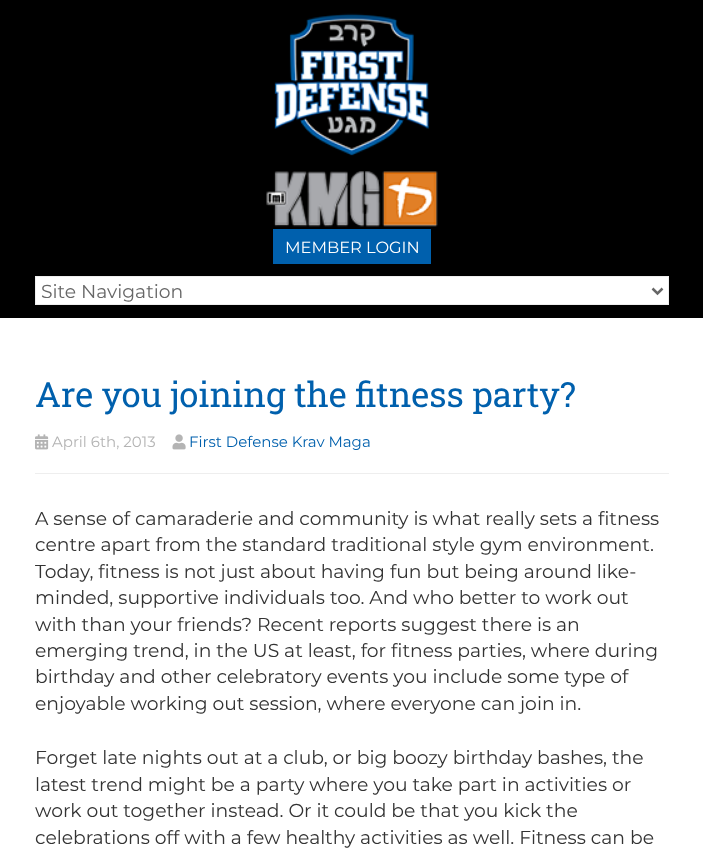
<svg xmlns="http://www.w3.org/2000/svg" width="703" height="854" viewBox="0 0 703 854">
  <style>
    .t1 { font: 16.25px Montserrat; fill: #fff; }
    .t2 { font: 18.75px Montserrat; fill: #676767; }
    .t3 { font: 34.75px Roboto Slab; fill: #0060ad; }
    .t4 { font: 15px Montserrat; fill: #b4b4b4; }
    .t5 { font: 15px Montserrat; fill: #0060ad; }
    .t6 { font: 18.75px Montserrat; fill: #333; }
  </style>
  <rect width="100%" height="100%" fill="#fff"/>
  <rect x="0" y="0" width="703" height="318" fill="#000"/>
  <image x="274" y="13" width="155" height="143" href="images/1.png"/>
  <image x="266" y="171" width="172" height="56" href="images/2.png"/>
  <rect x="273" y="229" width="158" height="35" fill="#0060ad"/>
  <text x="285" y="253" class="t1">MEMBER LOGIN</text>
  <rect x="35.5" y="276.5" width="633" height="28" fill="#fff" stroke="#eee"/>
  <path d="M652.5 288.5L657.5 293.5L662.5 288.5" fill="none" stroke="#676767" stroke-width="2.5"/>
  <text x="41" y="298" class="t2">Site Navigation</text>
  <text x="35" y="407" class="t3">Are you joining the fitness party?</text>
  <rect x="35" y="473" width="634" height="1" fill="#eee"/>
  <image x="35" y="434" width="14" height="16" href="images/3.png"/>
  <text x="52" y="447" class="t4">April 6th, 2013</text>
  <image x="172" y="434" width="14" height="16" href="images/4.png"/>
  <text x="189" y="447" class="t5">First Defense Krav Maga</text>
  <text x="35" y="525" class="t6">A sense of camaraderie and community is what really sets a fitness</text>
  <text x="35" y="551" class="t6">centre apart from the standard traditional style gym environment.</text>
  <text x="35" y="578" class="t6">Today, fitness is not just about having fun but being around like-</text>
  <text x="35" y="604" class="t6">minded, supportive individuals too. And who better to work out</text>
  <text x="35" y="631" class="t6">with than your friends? Recent reports suggest there is an</text>
  <text x="35" y="657" class="t6">emerging trend, in the US at least, for fitness parties, where during</text>
  <text x="35" y="683" class="t6">birthday and other celebratory events you include some type of</text>
  <text x="35" y="710" class="t6">enjoyable working out session, where everyone can join in.</text>
  <text x="35" y="764" class="t6">Forget late nights out at a club, or big boozy birthday bashes, the</text>
  <text x="35" y="791" class="t6">latest trend might be a party where you take part in activities or</text>
  <text x="35" y="817" class="t6">work out together instead. Or it could be that you kick the</text>
  <text x="35" y="844" class="t6">celebrations off with a few healthy activities as well. Fitness can be</text>
</svg>
